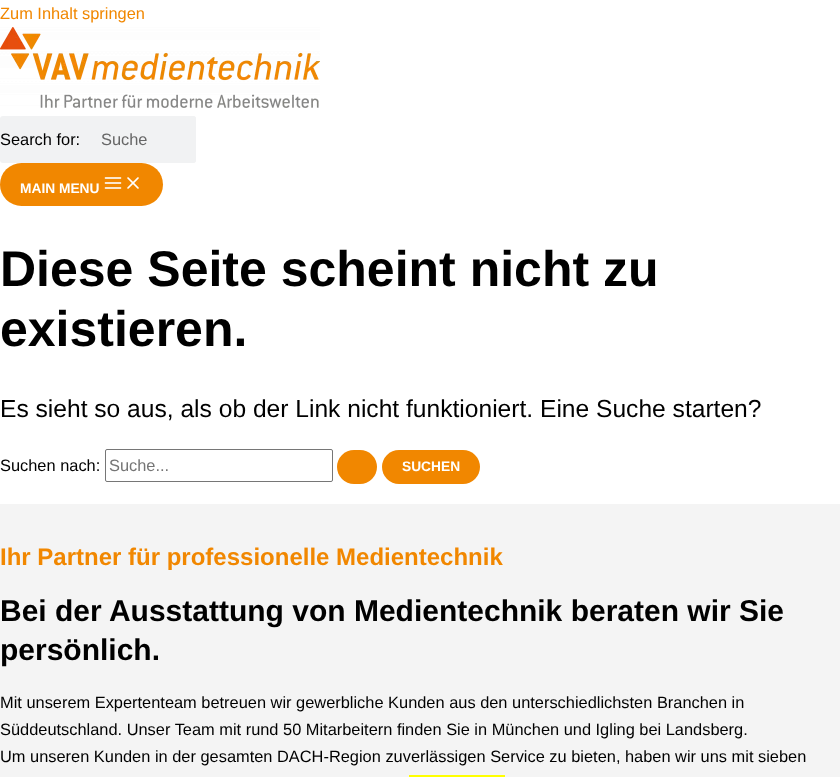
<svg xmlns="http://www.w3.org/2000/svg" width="840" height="777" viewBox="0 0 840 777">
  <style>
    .t1 { font: 16.4px Liberation Sans; fill: #f18700; }
    .t2 { font: 16.4px Liberation Sans; fill: #000; }
    .t3 { font: 16.4px Liberation Sans; fill: #666; }
    .t4 { font: bold 13.75px Liberation Sans; fill: #fff; }
    .t5 { font: bold 50px Liberation Sans; fill: #000; }
    .t6 { font: 24.6px Liberation Sans; fill: #000; }
    .t7 { font: 16.4px Liberation Sans; fill: #757575; }
    .t8 { font: bold 24px Liberation Sans; fill: #f18700; }
    .t9 { font: bold 30px Liberation Sans; fill: #000; }
  </style>
  <rect width="100%" height="100%" fill="#fff"/>
  <text x="0" y="19" class="t1">Zum Inhalt springen</text>
  <image x="0" y="27" width="320" height="81" href="images/1.png"/>
  <rect x="0" y="116" width="196" height="47" rx="3" fill="#f1f2f3"/>
  <text x="0" y="145" class="t2">Search for:</text>
  <rect x="85" y="116" width="111" height="47" rx="3" fill="#f1f2f3"/>
  <text x="101" y="145" class="t3">Suche</text>
  <rect x="0" y="163" width="163" height="43" rx="21.5" fill="#f18700"/>
  <text x="20" y="193" class="t4">MAIN MENU</text>
  <image x="104" y="177" width="18" height="12" href="images/2.png"/>
  <image x="127" y="177" width="12" height="12" href="images/3.png"/>
  <text x="0" y="286" class="t5">Diese Seite scheint nicht zu</text>
  <text x="0" y="346" class="t5">existieren.</text>
  <text x="0" y="417" class="t6">Es sieht so aus, als ob der Link nicht funktioniert. Eine Suche starten?</text>
  <text x="0" y="471" class="t2">Suchen nach:</text>
  <rect x="105.5" y="449.5" width="227" height="32" rx="1.5" fill="none" stroke="#767676"/>
  <text x="109" y="471" class="t7">Suche...</text>
  <rect x="337" y="450" width="40" height="34" rx="17" fill="#f18700"/>
  <rect x="382" y="450" width="98" height="34" rx="17" fill="#f18700"/>
  <text x="402" y="471" class="t4">SUCHEN</text>
  <rect x="0" y="504" width="840" height="273" fill="#f4f4f4"/>
  <text x="0" y="565" class="t8">Ihr Partner für professionelle Medientechnik</text>
  <text x="0" y="621" class="t9">Bei der Ausstattung von Medientechnik beraten wir Sie</text>
  <text x="0" y="660" class="t9">persönlich.</text>
  <text x="0" y="708" class="t2">Mit unserem Expertenteam betreuen wir gewerbliche Kunden aus den unterschiedlichsten Branchen in</text>
  <text x="0" y="735" class="t2">Süddeutschland. Unser Team mit rund 50 Mitarbeitern finden Sie in München und Igling bei Landsberg.</text>
  <text x="0" y="762" class="t2">Um unseren Kunden in der gesamten DACH-Region zuverlässigen Service zu bieten, haben wir uns mit sieben</text>
  <rect x="409" y="775" width="96" height="2" fill="#ff0"/>
</svg>
